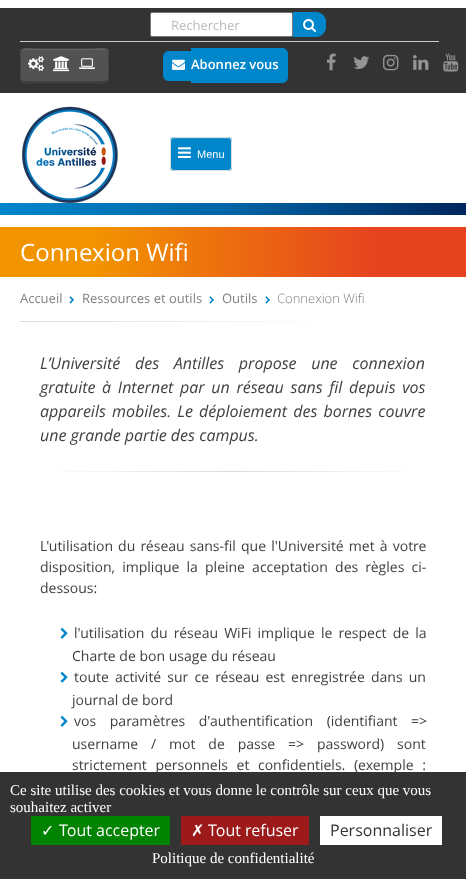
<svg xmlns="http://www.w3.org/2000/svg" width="466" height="879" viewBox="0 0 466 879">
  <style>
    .t1 { font: 13px Open Sans; fill: #bababa; }
    .t2 { font: 600 13px Open Sans; fill: #fff; }
    .t3 { font: 11px Liberation Sans; fill: #fff; }
    .t4 { font: 24px Open Sans; fill: #fff; }
    .t5 { font: 13px Open Sans; fill: #808080; }
    .t6 { font: 300 13px Open Sans; fill: #808080; }
    .t7 { font: italic 16px Open Sans; fill: #404040; }
    .t8 { font: 14px Open Sans; fill: #404040; }
    .t9 { font: 15px Liberation Serif; fill: #fff; }
    .t10 { font: 16px DejaVu Sans; fill: #fff; }
    .t11 { font: 16px Open Sans; fill: #fff; }
    .t12 { font: 16px Open Sans; fill: #333; }
  </style>
  <defs>
    <linearGradient id="g1" gradientUnits="userSpaceOnUse" x1="0" y1="209" x2="466" y2="209"><stop offset="0" stop-color="#0086cb"/><stop offset="0.5" stop-color="#0064a5"/><stop offset="1" stop-color="#00265e"/></linearGradient>
    <linearGradient id="g2" gradientUnits="userSpaceOnUse" x1="0" y1="252" x2="466" y2="252"><stop offset="0" stop-color="#f29400"/><stop offset="0.2" stop-color="#f29400"/><stop offset="0.8" stop-color="#e6441f"/><stop offset="1" stop-color="#e6441f"/></linearGradient>
    <linearGradient id="g3" gradientUnits="userSpaceOnUse" x1="20" y1="322" x2="446" y2="322"><stop offset="0" stop-color="#dbdbdb"/><stop offset="0.75" stop-color="#fff"/></linearGradient>
    <linearGradient id="g4" gradientUnits="userSpaceOnUse" x1="40" y1="472" x2="426" y2="472"><stop offset="0" stop-color="#fff"/><stop offset="0.5" stop-color="#dbdbdb"/><stop offset="1" stop-color="#fff"/></linearGradient>
  </defs>
  <rect width="100%" height="100%" fill="#fff"/>
  <rect x="0" y="8" width="466" height="85" fill="#333"/>
  <rect x="20" y="41" width="419" height="1" fill="#ccc"/>
  <rect x="150.5" y="12.5" width="142" height="24" rx="1.5" fill="#fff" stroke="#767676"/>
  <text x="171" y="30" class="t1">Rechercher</text>
  <path d="M293 12H316C321.5 12 326 16.5 326 22V27C326 32.5 321.5 37 316 37H293Z" fill="#0086cb"/>
  <rect x="293" y="12" width="33" height="25" rx="12.5" fill="#0086cb"/>
  <image x="303" y="19" width="13" height="13" href="images/1.png"/>
  <path d="M20 78C20 86 33 83 38 83H92C96 83 109 86 109 78C109 80 107 82 105 82H24C22 82 20 80 20 78Z" fill="#424242"/>
  <rect x="20" y="48" width="89" height="34" rx="4" fill="#525253"/>
  <path d="M24 50H105C107 50 108 51 108 53C108 45 95 49 92 49H38C34 49 21 45 21 53C21 51 22 50 24 50Z" fill="#636364"/>
  <path d="M107.5 80.5L105.5 81.5H23.5L21.5 80.5" fill="none" stroke="#00000040"/>
  <path d="M21.5 80.5C19.5 78 20.5 68 20.5 65C20.5 45.5 17.5 48.5 37.5 48.5H91.5C111.5 48.5 108.5 45.5 108.5 65C108.5 68 109.5 78 107.5 80.5" fill="none" stroke="#00000026"/>
  <image x="28" y="56" width="17" height="15" href="images/2.png"/>
  <image x="53" y="56" width="17" height="16" href="images/3.png"/>
  <image x="79" y="58" width="17" height="11" href="images/4.png"/>
  <path d="M169 51H191V81H169C165.5 81 163 78.5 163 75V57C163 53.5 165.5 51 169 51Z" fill="#0086cb"/>
  <image x="172" y="59" width="13" height="11" href="images/5.png"/>
  <path d="M191 48H282C285.5 48 288 50.5 288 54V77C288 80.5 285.5 83 282 83H191Z" fill="#0086cb"/>
  <text x="191" y="69" class="t2">Abonnez vous</text>
  <image x="326" y="53" width="10" height="18" href="images/6.png"/>
  <image x="353" y="56" width="16" height="13" href="images/7.png"/>
  <image x="383" y="54" width="16" height="17" href="images/8.png"/>
  <image x="413" y="55" width="16" height="15" href="images/9.png"/>
  <image x="443" y="53" width="16" height="19" href="images/10.png"/>
  <rect x="0" y="203" width="466" height="12" fill="url(#g1)"/>
  <image x="22" y="106" width="96" height="98" href="images/11.png"/>
  <rect x="170" y="137" width="62" height="34" rx="4" fill="#0086cb"/>
  <path d="M174 139H228C230 139 231 140 231 142C231 136 223 138 219 138H183C179 138 171 136 171 142C171 140 172 139 174 139Z" fill="#1a92d0"/>
  <rect x="170.5" y="137.5" width="61" height="33" rx="3.5" fill="none" stroke="#ddd"/>
  <image x="178" y="147" width="13" height="11" href="images/12.png"/>
  <text x="197" y="158" class="t3">Menu</text>
  <rect x="0" y="227" width="466" height="50" fill="url(#g2)"/>
  <text x="20" y="261" class="t4">Connexion Wifi</text>
  <text x="20" y="303" class="t5">Accueil</text>
  <image x="69" y="296" width="5" height="8" href="images/13.png"/>
  <text x="82" y="303" class="t5">Ressources et outils</text>
  <image x="209" y="296" width="5" height="8" href="images/13.png"/>
  <text x="222" y="303" class="t5">Outils</text>
  <image x="265" y="296" width="5" height="8" href="images/13.png"/>
  <text x="277" y="303" class="t6">Connexion Wifi</text>
  <rect x="20" y="321" width="297" height="1" fill="url(#g3)"/>
  <text x="40" y="369" word-spacing="10.5" class="t7">L’Université des Antilles propose une connexion</text>
  <text x="40" y="393" word-spacing="2.5" class="t7">gratuite à Internet par un réseau sans fil depuis vos</text>
  <text x="40" y="417" word-spacing="2" class="t7">appareils mobiles. Le déploiement des bornes couvre</text>
  <text x="40" y="441" class="t7">une grande partie des campus.</text>
  <rect x="53" y="471" width="360" height="1" fill="url(#g4)"/>
  <text x="40" y="551" word-spacing="1.5" class="t8">L'utilisation du réseau sans-fil que l'Université met à votre</text>
  <text x="40" y="572" word-spacing="3.5" class="t8">disposition, implique la pleine acceptation des règles ci-</text>
  <text x="40" y="593" class="t8">dessous:</text>
  <image x="60" y="627" width="8" height="12" href="images/14.png"/>
  <text x="74" y="638" word-spacing="2.5" class="t8">l'utilisation du réseau WiFi implique le respect de la</text>
  <text x="72" y="661" class="t8">Charte de bon usage du réseau</text>
  <image x="60" y="671" width="8" height="12" href="images/14.png"/>
  <text x="74" y="682" word-spacing="2.5" class="t8">toute activité sur ce réseau est enregistrée dans un</text>
  <text x="72" y="705" class="t8">journal de bord</text>
  <image x="60" y="715" width="8" height="12" href="images/14.png"/>
  <text x="74" y="726" word-spacing="10" class="t8">vos paramètres d'authentification (identifiant =&gt;</text>
  <text x="72" y="749" word-spacing="9.25" class="t8">username / mot de passe =&gt; password) sont</text>
  <text x="72" y="770" word-spacing="5" class="t8">strictement personnels et confidentiels. (exemple :</text>
  <rect x="0" y="772" width="466" height="107" fill="#333"/>
  <text x="10" y="795" class="t9">Ce site utilise des cookies et vous donne le contrôle sur ceux que vous</text>
  <text x="10" y="812" class="t9">souhaitez activer</text>
  <rect x="31" y="816" width="139" height="29" fill="#008300"/>
  <text x="41" y="836" class="t10">✓</text>
  <text x="59" y="836" class="t11">Tout accepter</text>
  <rect x="181" y="816" width="128" height="29" fill="#9c1a1a"/>
  <text x="191" y="836" class="t10">✗</text>
  <text x="208" y="836" class="t11">Tout refuser</text>
  <rect x="320" y="816" width="122" height="29" fill="#fff"/>
  <text x="330" y="836" class="t12">Personnaliser</text>
  <text x="152" y="863" class="t9">Politique de confidentialité</text>
</svg>
